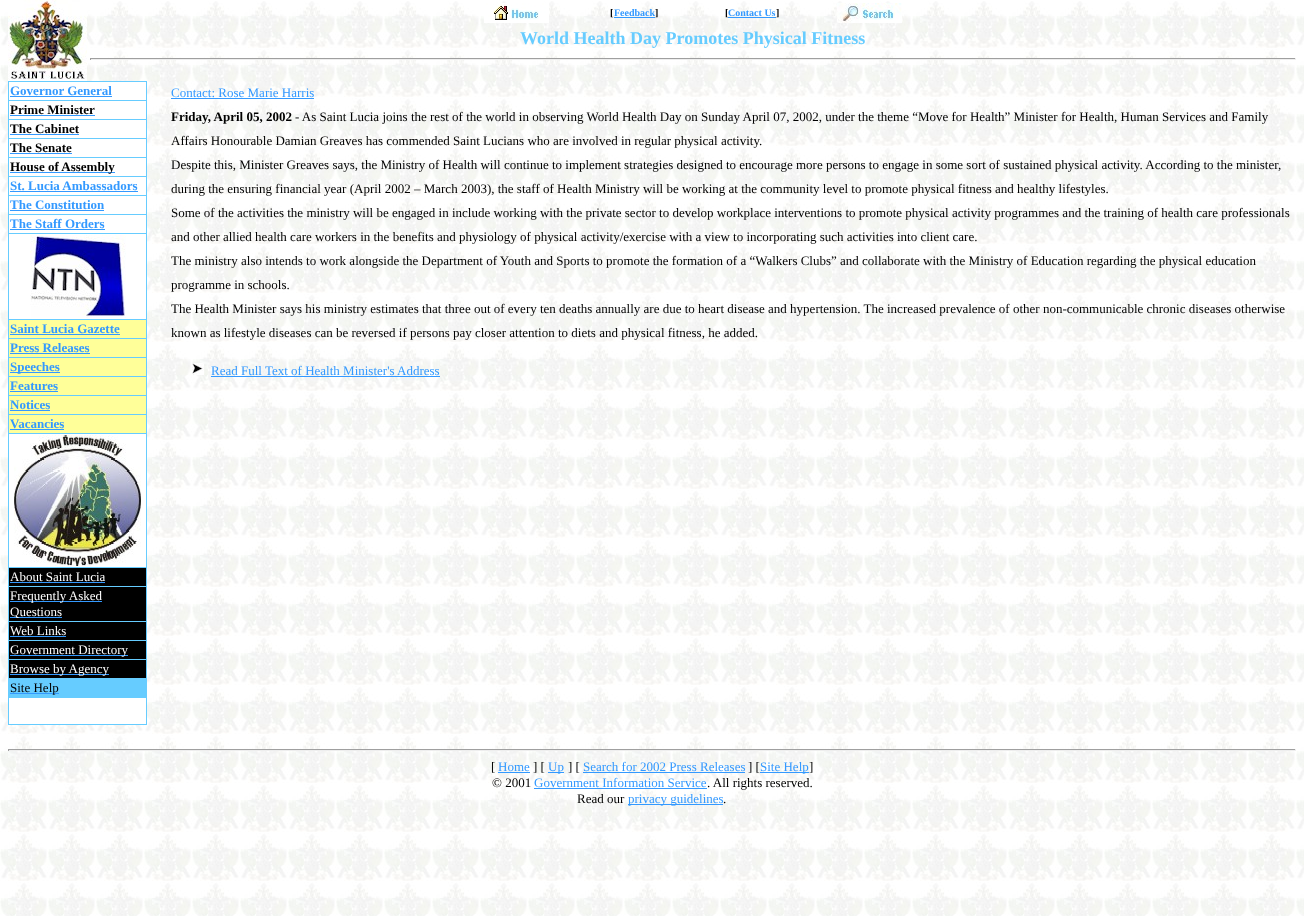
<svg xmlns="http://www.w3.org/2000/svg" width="1304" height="916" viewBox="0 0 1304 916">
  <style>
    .t1 { font: bold 10px Liberation Serif; fill: #000; }
    .t2 { font: bold 10px Liberation Serif; fill: #39f; }
    .t3 { font: bold 18px Liberation Serif; fill: #6cf; }
    .t4 { font: bold 13px Liberation Serif; fill: #39f; }
    .t5 { font: bold 13px Liberation Serif; fill: #000; }
    .t6 { font: 13px Liberation Serif; fill: #fff; }
    .t7 { font: 13px Liberation Serif; fill: #000; }
    .t8 { font: 13px Liberation Serif; fill: #39f; }
  </style>
  <rect width="100%" height="100%" fill="#fff"/>
  <image x="0" y="1" width="1304" height="915" href="images/1.png"/>
  <image x="8" y="0" width="79" height="81" href="images/2.png"/>
  <image x="484" y="3" width="65" height="20" href="images/3.png"/>
  <text x="610" y="16" class="t1">[</text>
  <rect x="614" y="17" width="41" height="1" fill="#39f"/>
  <text x="614" y="16" class="t2">Feedback</text>
  <text x="655" y="16" class="t1">]</text>
  <text x="725" y="16" class="t1">[</text>
  <rect x="728" y="17" width="48" height="1" fill="#39f"/>
  <text x="728" y="16" class="t2">Contact Us</text>
  <text x="776" y="16" class="t1">]</text>
  <image x="837" y="3" width="65" height="20" href="images/4.png"/>
  <text x="520" y="44" class="t3">World Health Day Promotes Physical Fitness</text>
  <rect x="90" y="58" width="1206" height="1" fill="#9f9f9f"/>
  <rect x="1295" y="58" width="1" height="2" fill="#eee"/>
  <rect x="90" y="59" width="1206" height="1" fill="#eee"/>
  <rect x="90" y="58" width="1" height="2" fill="#9f9f9f"/>
  <rect x="8" y="81" width="139" height="644" fill="#6cf"/>
  <rect x="9" y="82" width="137" height="18" fill="#fff"/>
  <text x="10" y="95" class="t4">Governor General</text>
  <rect x="10" y="96" width="102" height="1" fill="#39f"/>
  <rect x="9" y="101" width="137" height="18" fill="#fff"/>
  <text x="10" y="114" class="t5">Prime Minister</text>
  <rect x="10" y="115" width="85" height="1" fill="#39f"/>
  <rect x="9" y="120" width="137" height="18" fill="#fff"/>
  <text x="10" y="133" class="t5">The Cabinet</text>
  <rect x="10" y="134" width="69" height="1" fill="#39f"/>
  <rect x="9" y="139" width="137" height="18" fill="#fff"/>
  <text x="10" y="152" class="t5">The Senate</text>
  <rect x="10" y="153" width="62" height="1" fill="#39f"/>
  <rect x="9" y="158" width="137" height="18" fill="#fff"/>
  <rect x="10" y="172" width="105" height="1" fill="#39f"/>
  <text x="10" y="171" class="t5">House of Assembly</text>
  <rect x="9" y="177" width="137" height="18" fill="#fff"/>
  <text x="10" y="190" class="t4">St. Lucia Ambassadors</text>
  <rect x="10" y="191" width="128" height="1" fill="#39f"/>
  <rect x="9" y="196" width="137" height="18" fill="#fff"/>
  <text x="10" y="209" class="t4">The Constitution</text>
  <rect x="10" y="210" width="94" height="1" fill="#39f"/>
  <rect x="9" y="215" width="137" height="18" fill="#fff"/>
  <text x="10" y="228" class="t4">The Staff Orders</text>
  <rect x="10" y="229" width="95" height="1" fill="#39f"/>
  <rect x="9" y="234" width="137" height="85" fill="#fff"/>
  <image x="30" y="235" width="96" height="83" href="images/5.png"/>
  <rect x="9" y="320" width="137" height="18" fill="#ff9"/>
  <text x="10" y="333" class="t4">Saint Lucia Gazette</text>
  <rect x="10" y="334" width="110" height="1" fill="#39f"/>
  <rect x="9" y="339" width="137" height="18" fill="#ff9"/>
  <text x="10" y="352" class="t4">Press Releases</text>
  <rect x="10" y="353" width="80" height="1" fill="#39f"/>
  <rect x="9" y="358" width="137" height="18" fill="#ff9"/>
  <rect x="10" y="372" width="50" height="1" fill="#39f"/>
  <text x="10" y="371" class="t4">Speeches</text>
  <rect x="9" y="377" width="137" height="18" fill="#ff9"/>
  <text x="10" y="390" class="t4">Features</text>
  <rect x="10" y="391" width="48" height="1" fill="#39f"/>
  <rect x="9" y="396" width="137" height="18" fill="#ff9"/>
  <text x="10" y="409" class="t4">Notices</text>
  <rect x="10" y="410" width="40" height="1" fill="#39f"/>
  <rect x="9" y="415" width="137" height="18" fill="#ff9"/>
  <text x="10" y="428" class="t4">Vacancies</text>
  <rect x="10" y="429" width="54" height="1" fill="#39f"/>
  <rect x="9" y="434" width="137" height="133" fill="#fff"/>
  <image x="14" y="435" width="127" height="131" href="images/6.png"/>
  <rect x="9" y="568" width="137" height="18" fill="#000"/>
  <text x="10" y="581" class="t6">About Saint Lucia</text>
  <rect x="10" y="582" width="95" height="1" fill="#39f"/>
  <rect x="9" y="587" width="137" height="34" fill="#000"/>
  <rect x="10" y="601" width="92" height="1" fill="#39f"/>
  <text x="10" y="600" class="t6">Frequently Asked</text>
  <rect x="10" y="617" width="52" height="1" fill="#39f"/>
  <text x="10" y="616" class="t6">Questions</text>
  <rect x="9" y="622" width="137" height="18" fill="#000"/>
  <text x="10" y="635" class="t6">Web Links</text>
  <rect x="10" y="636" width="56" height="1" fill="#39f"/>
  <rect x="9" y="641" width="137" height="18" fill="#000"/>
  <rect x="10" y="655" width="118" height="1" fill="#39f"/>
  <text x="10" y="654" class="t6">Government Directory</text>
  <rect x="9" y="660" width="137" height="18" fill="#000"/>
  <rect x="10" y="674" width="99" height="1" fill="#39f"/>
  <text x="10" y="673" class="t6">Browse by Agency</text>
  <rect x="10" y="693" width="49" height="1" fill="#39f"/>
  <text x="10" y="692" class="t7">Site Help</text>
  <rect x="9" y="698" width="137" height="26" fill="#fff"/>
  <text x="171" y="97" class="t8">Contact: Rose Marie Harris</text>
  <rect x="171" y="98" width="143" height="1" fill="#39f"/>
  <text x="171" y="121" class="t5">Friday, April 05, 2002</text>
  <text x="295" y="121" class="t7">- As Saint Lucia joins the rest of the world in observing World Health Day on Sunday April 07, 2002, under the theme “Move for Health” Minister for Health, Human Services and Family</text>
  <text x="171" y="145" class="t7">Affairs Honourable Damian Greaves has commended Saint Lucians who are involved in regular physical activity.</text>
  <text x="171" y="169" class="t7">Despite this, Minister Greaves says, the Ministry of Health will continue to implement strategies designed to encourage more persons to engage in some sort of sustained physical activity. According to the minister,</text>
  <text x="171" y="193" class="t7">during the ensuring financial year (April 2002 – March 2003), the staff of Health Ministry will be working at the community level to promote physical fitness and healthy lifestyles.</text>
  <text x="171" y="217" class="t7">Some of the activities the ministry will be engaged in include working with the private sector to develop workplace interventions to promote physical activity programmes and the training of health care professionals</text>
  <text x="171" y="241" class="t7">and other allied health care workers in the benefits and physiology of physical activity/exercise with a view to incorporating such activities into client care.</text>
  <text x="171" y="265" class="t7">The ministry also intends to work alongside the Department of Youth and Sports to promote the formation of a “Walkers Clubs” and collaborate with the Ministry of Education regarding the physical education</text>
  <text x="171" y="289" class="t7">programme in schools.</text>
  <text x="171" y="313" class="t7">The Health Minister says his ministry estimates that three out of every ten deaths annually are due to heart disease and hypertension. The increased prevalence of other non-communicable chronic diseases otherwise</text>
  <text x="171" y="337" class="t7">known as lifestyle diseases can be reversed if persons pay closer attention to diets and physical fitness, he added.</text>
  <image x="192" y="363" width="12" height="12" href="images/7.png"/>
  <text x="211" y="375" class="t8">Read Full Text of Health Minister's Address</text>
  <rect x="211" y="376" width="229" height="1" fill="#39f"/>
  <rect x="8" y="749" width="1288" height="1" fill="#9f9f9f"/>
  <rect x="1295" y="749" width="1" height="2" fill="#eee"/>
  <rect x="8" y="750" width="1288" height="1" fill="#eee"/>
  <rect x="8" y="749" width="1" height="2" fill="#9f9f9f"/>
  <text x="491" y="771" class="t7">[</text>
  <text x="498" y="771" class="t8">Home</text>
  <rect x="498" y="772" width="32" height="1" fill="#39f"/>
  <text x="533" y="771" class="t7">] [</text>
  <rect x="548" y="772" width="16" height="1" fill="#39f"/>
  <text x="548" y="771" class="t8">Up</text>
  <text x="568" y="771" class="t7">] [</text>
  <text x="583" y="771" class="t8">Search for 2002 Press Releases</text>
  <rect x="583" y="772" width="162" height="1" fill="#39f"/>
  <text x="748" y="771" class="t7">] [</text>
  <rect x="760" y="772" width="49" height="1" fill="#39f"/>
  <text x="760" y="771" class="t8">Site Help</text>
  <text x="809" y="771" class="t7">]</text>
  <text x="492" y="787" class="t7">© 2001</text>
  <text x="534" y="787" class="t8">Government Information Service</text>
  <text x="707" y="787" class="t7">. All rights reserved.</text>
  <rect x="534" y="788" width="173" height="1" fill="#39f"/>
  <text x="577" y="803" class="t7">Read our</text>
  <rect x="628" y="804" width="95" height="1" fill="#39f"/>
  <text x="628" y="803" class="t8">privacy guidelines</text>
  <text x="723" y="803" class="t7">.</text>
</svg>
